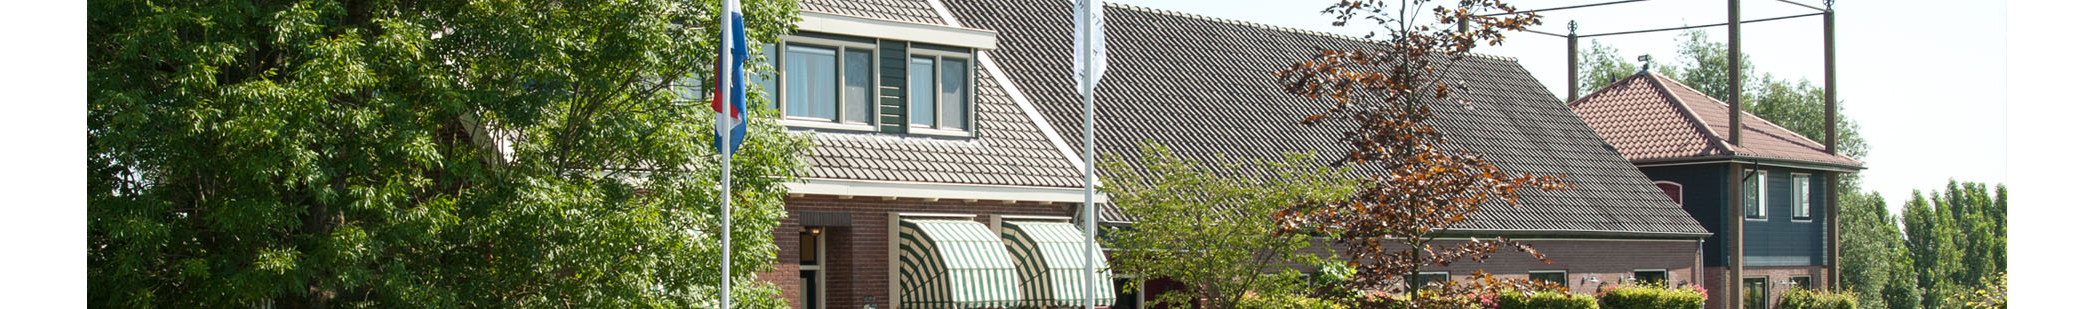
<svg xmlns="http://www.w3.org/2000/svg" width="2094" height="309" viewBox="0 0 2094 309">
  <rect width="100%" height="100%" fill="#fff"/>
  <image x="87" y="0" width="1920" height="309" href="images/1.png"/>
</svg>
